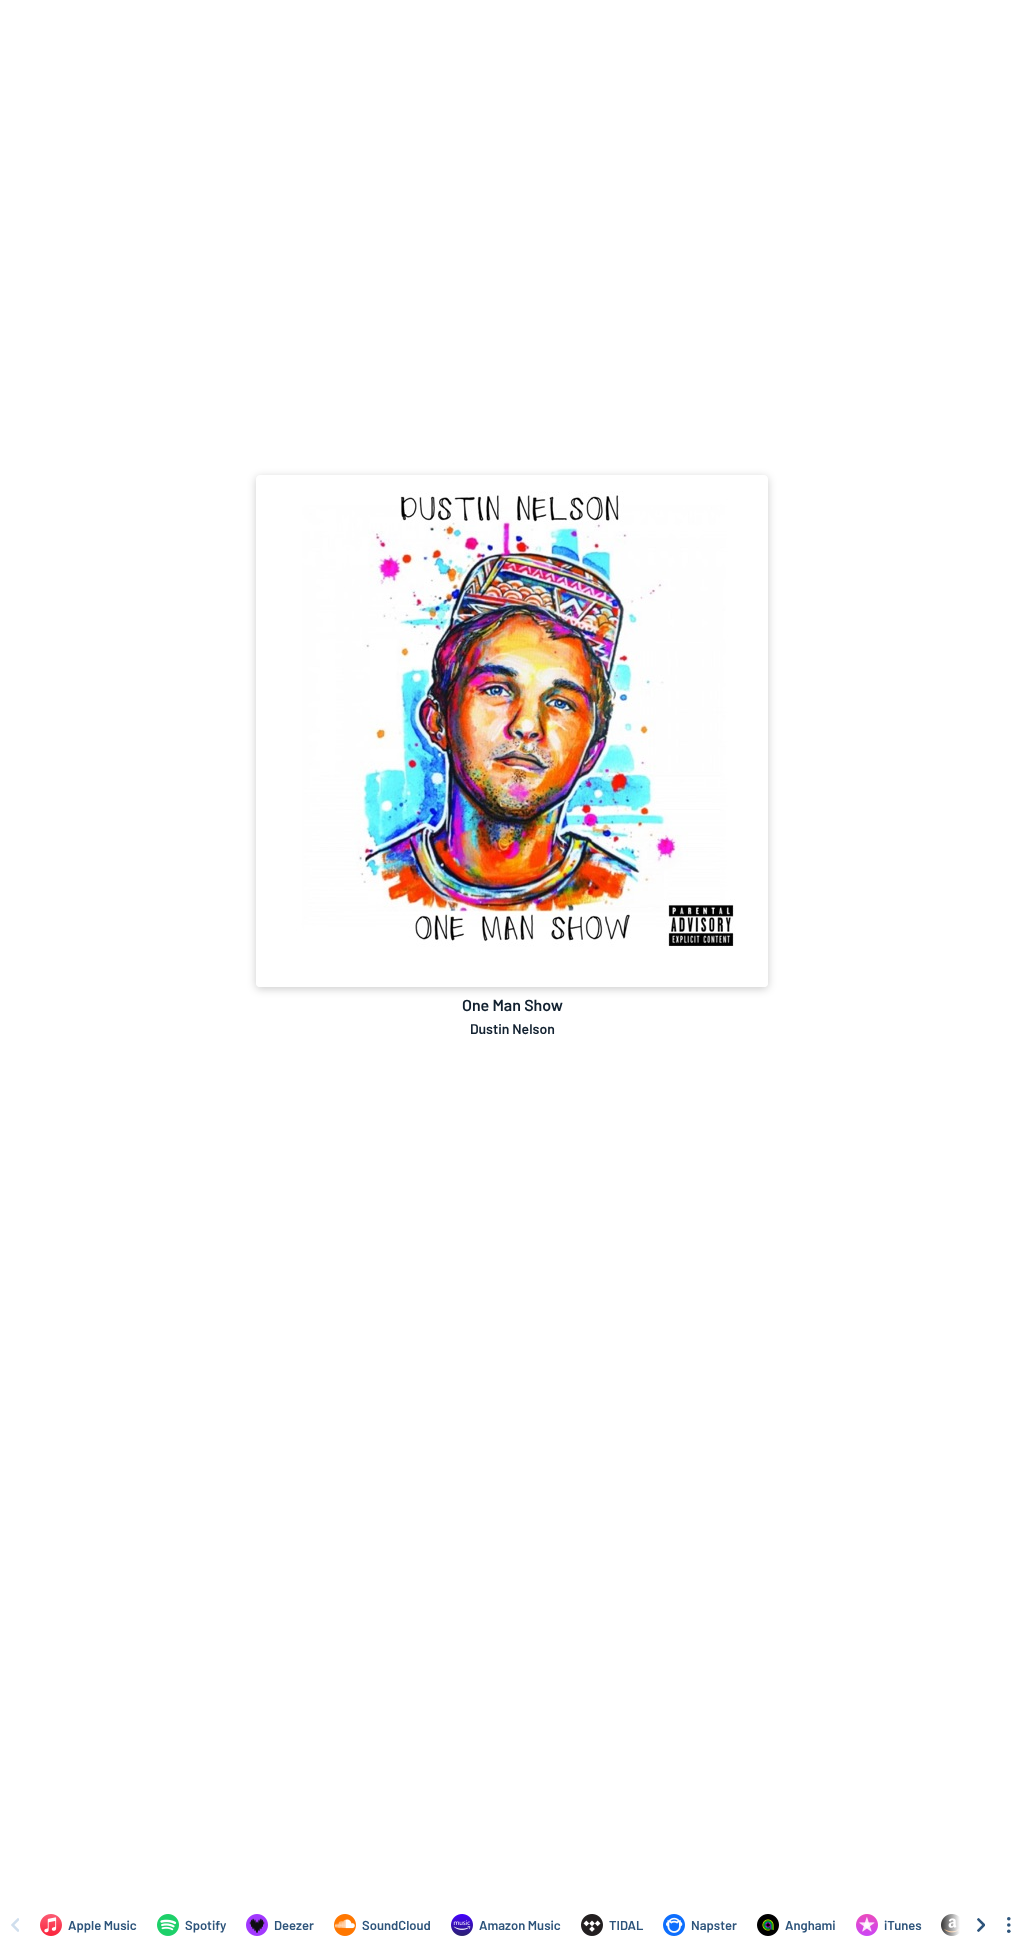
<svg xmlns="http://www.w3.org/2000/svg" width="1024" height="1951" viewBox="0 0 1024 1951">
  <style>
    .t1 { font: 600 16px Barlow; fill: #122130; }
    .t2 { font: 600 14px Barlow; fill: #122130; }
    .t3 { font: 600 13px Barlow; fill: #2d547b; }
  </style>
  <defs>
    <clipPath id="clip1"><path d="M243 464H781V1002H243ZM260 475H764C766 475 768 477 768 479V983C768 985 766 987 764 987H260C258 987 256 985 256 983V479C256 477 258 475 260 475Z" clip-rule="evenodd"/></clipPath>
    <linearGradient id="g1" gradientUnits="userSpaceOnUse" x1="966" y1="1925" x2="936" y2="1925"><stop offset="0.2" stop-color="#fff"/><stop offset="1" stop-color="#fff" stop-opacity="0"/></linearGradient>
  </defs>
  <rect width="100%" height="100%" fill="#fff"/>
  <g clip-path="url(#clip1)">
    <rect x="256" y="477" width="512" height="512" rx="4" fill="#00000033" filter="blur(4px)"/>
  </g>
  <image x="256" y="491" width="512" height="496" href="images/1.png"/>
  <text x="462" y="1011" class="t1">One Man Show</text>
  <text x="470" y="1034" class="t2">Dustin Nelson</text>
  <image x="11" y="1918" width="8" height="14" href="images/2.png"/>
  <image x="40" y="1914" width="22" height="22" href="images/3.png"/>
  <text x="68" y="1930" class="t3">Apple Music</text>
  <image x="157" y="1914" width="22" height="22" href="images/4.png"/>
  <text x="185" y="1930" class="t3">Spotify</text>
  <image x="246" y="1914" width="22" height="22" href="images/5.png"/>
  <text x="274" y="1930" class="t3">Deezer</text>
  <image x="334" y="1914" width="22" height="22" href="images/6.png"/>
  <text x="362" y="1930" class="t3">SoundCloud</text>
  <image x="451" y="1914" width="22" height="22" href="images/7.png"/>
  <text x="479" y="1930" class="t3">Amazon Music</text>
  <image x="581" y="1914" width="22" height="22" href="images/8.png"/>
  <text x="609" y="1930" class="t3">TIDAL</text>
  <image x="663" y="1914" width="22" height="22" href="images/9.png"/>
  <text x="691" y="1930" class="t3">Napster</text>
  <image x="757" y="1914" width="22" height="22" href="images/10.png"/>
  <text x="785" y="1930" class="t3">Anghami</text>
  <image x="856" y="1914" width="22" height="22" href="images/11.png"/>
  <text x="884" y="1930" class="t3">iTunes</text>
  <image x="941" y="1914" width="19" height="22" href="images/12.png"/>
  <rect x="941" y="1914" width="19" height="22" fill="url(#g1)"/>
  <image x="977" y="1918" width="8" height="14" href="images/13.png"/>
  <circle cx="1008.8" cy="1931.2" r="1.8" fill="#2d547b"/>
  <circle cx="1008.8" cy="1925" r="1.8" fill="#2d547b"/>
  <circle cx="1008.8" cy="1918.8" r="1.8" fill="#2d547b"/>
</svg>
